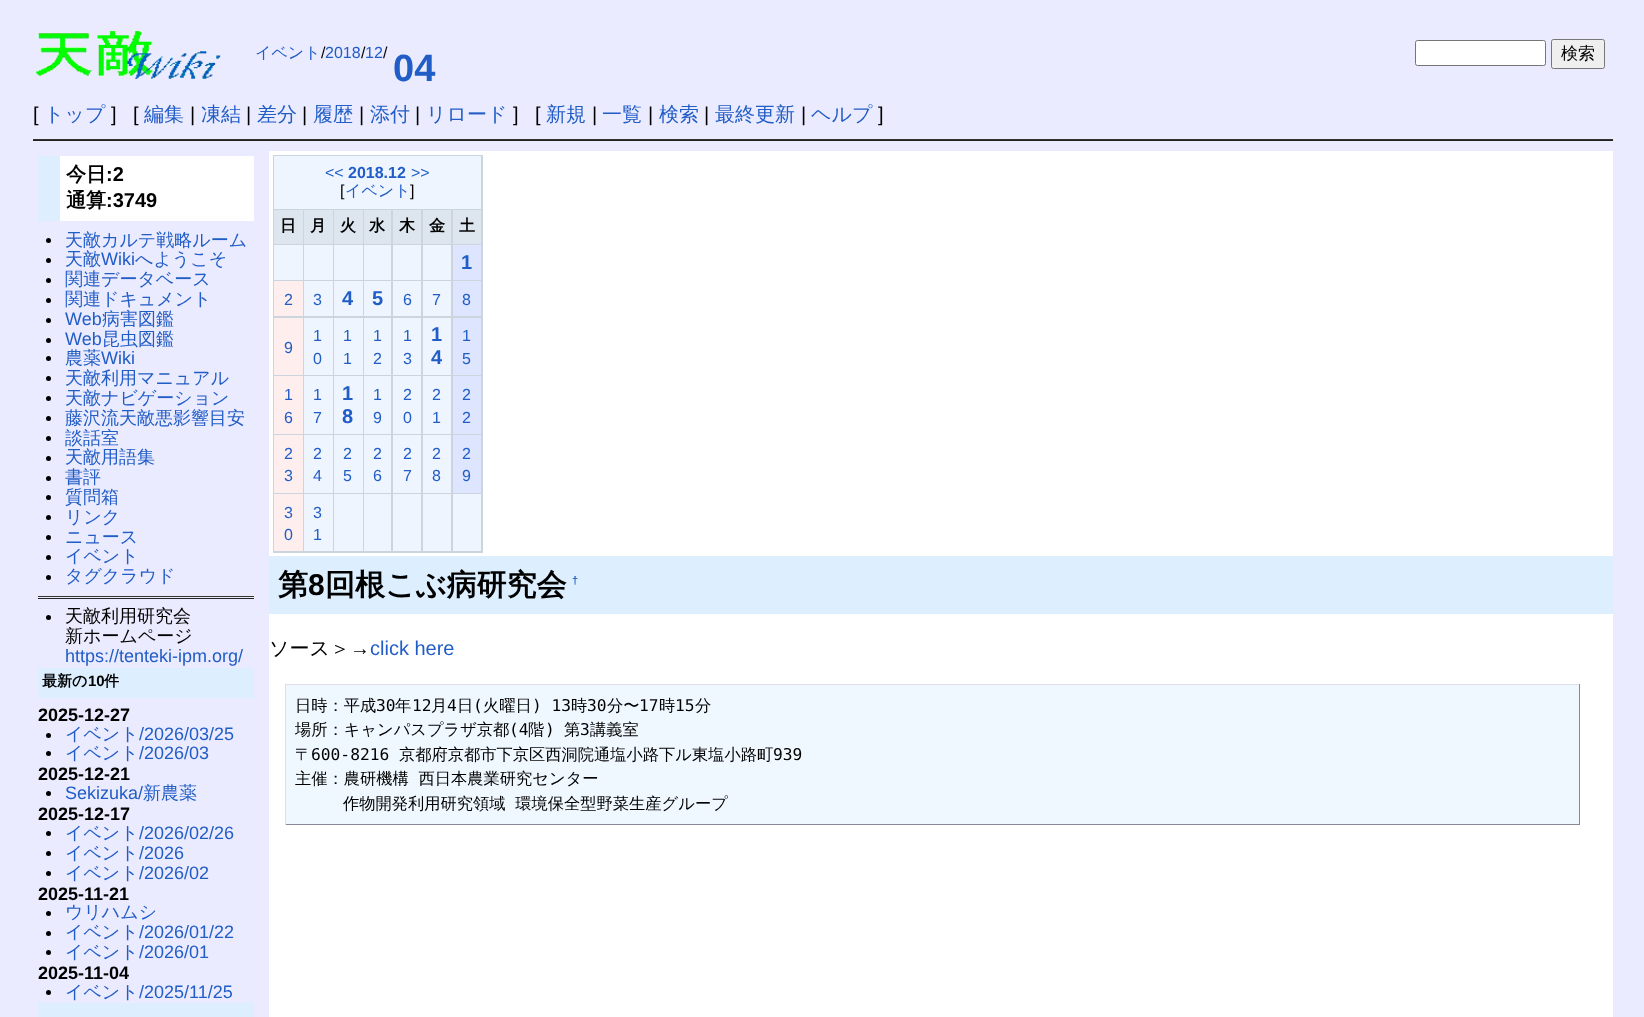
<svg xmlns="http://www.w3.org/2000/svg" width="1644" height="1017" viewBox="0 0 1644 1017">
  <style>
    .t1 { font: 500 16px WenQuanYi Zen Hei; fill: #215dc6; }
    .t2 { font: 16px Liberation Sans; fill: #000; }
    .t3 { font: 16px Liberation Sans; fill: #215dc6; }
    .t4 { font: bold 38px Liberation Sans; fill: #215dc6; }
    .t5 { font: 500 17px WenQuanYi Zen Hei; fill: #000; }
    .t6 { font: 20px Liberation Sans; fill: #000; }
    .t7 { font: 500 20px WenQuanYi Zen Hei; fill: #215dc6; }
    .t8 { font: bold 20px WenQuanYi Zen Hei; fill: #000; }
    .t9 { font: bold 20px Liberation Sans; fill: #000; }
    .t10 { font: 500 18px WenQuanYi Zen Hei; fill: #215dc6; }
    .t11 { font: 18px Liberation Sans; fill: #215dc6; }
    .t12 { font: 500 18px WenQuanYi Zen Hei; fill: #000; }
    .t13 { font: bold 15px WenQuanYi Zen Hei; fill: #000; }
    .t14 { font: bold 15px Liberation Sans; fill: #000; }
    .t15 { font: bold 18px Liberation Sans; fill: #000; }
    .t16 { font: bold 16px Liberation Sans; fill: #215dc6; }
    .t17 { font: bold 16px WenQuanYi Zen Hei; fill: #000; }
    .t18 { font: bold 20px Liberation Sans; fill: #215dc6; }
    .t19 { font: bold 30px WenQuanYi Zen Hei; fill: #000; }
    .t20 { font: bold 30px Liberation Sans; fill: #000; }
    .t21 { font: bold 11px Liberation Sans; fill: #215dc6; }
    .t22 { font: 500 20px WenQuanYi Zen Hei; fill: #000; }
    .t23 { font: 20px Liberation Sans; fill: #215dc6; }
    .t24 { font: 500 16.25px WenQuanYi Zen Hei; fill: #000; }
    .t25 { font: 16.25px DejaVu Sans Mono; fill: #000; }
  </style>
  <rect width="100%" height="100%" fill="#ebebff"/>
  <image x="36" y="30" width="185" height="49" href="images/1.png"/>
  <text x="255" y="58" class="t1">イベント</text>
  <text x="321" y="58" class="t2">/</text>
  <text x="325" y="58" class="t3">2018 12</text>
  <text x="361" y="58" class="t2">/</text>
  <text x="383" y="58" class="t2">/</text>
  <text x="393" y="81" class="t4">04</text>
  <rect x="1415.5" y="40.5" width="130" height="25" rx="2" fill="#fff" stroke="#767676"/>
  <rect x="1551.5" y="39.5" width="53" height="29" rx="2" fill="#efefef" stroke="#767676"/>
  <text x="1561" y="59" class="t5">検索</text>
  <text x="33" y="121" class="t6">[</text>
  <text x="44" y="121" class="t7">トップ</text>
  <text x="111" y="121" class="t6">]</text>
  <text x="133" y="121" class="t6">[</text>
  <text x="144" y="121" class="t7">編集</text>
  <text x="190" y="121" class="t6">|</text>
  <text x="201" y="121" class="t7">凍結</text>
  <text x="246" y="121" class="t6">|</text>
  <text x="257" y="121" class="t7">差分</text>
  <text x="302" y="121" class="t6">|</text>
  <text x="313" y="121" class="t7">履歴</text>
  <text x="359" y="121" class="t6">|</text>
  <text x="370" y="121" class="t7">添付</text>
  <text x="415" y="121" class="t6">|</text>
  <text x="426" y="121" class="t7">リロード</text>
  <text x="513" y="121" class="t6">]</text>
  <text x="535" y="121" class="t6">[</text>
  <text x="546" y="121" class="t7">新規</text>
  <text x="592" y="121" class="t6">|</text>
  <text x="602" y="121" class="t7">一覧</text>
  <text x="648" y="121" class="t6">|</text>
  <text x="659" y="121" class="t7">検索</text>
  <text x="704" y="121" class="t6">|</text>
  <text x="715" y="121" class="t7">最終更新</text>
  <text x="801" y="121" class="t6">|</text>
  <text x="811" y="121" class="t7">ヘルプ</text>
  <text x="878" y="121" class="t6">]</text>
  <rect x="33" y="139" width="1580" height="1" fill="#333"/>
  <rect x="33" y="140" width="1580" height="1" fill="#222"/>
  <rect x="60" y="156" width="194" height="65" fill="#fff"/>
  <rect x="38" y="156" width="22" height="65" fill="#def"/>
  <text x="66" y="181" class="t8">今日</text>
  <text x="106" y="181" class="t9">:2</text>
  <text x="66" y="207" class="t8">通算</text>
  <text x="106" y="207" class="t9">:3749</text>
  <circle cx="48.5" cy="240.5" r="2.5" fill="#000"/>
  <text x="65" y="246" class="t10">天敵カルテ戦略ルーム</text>
  <circle cx="48.5" cy="260.5" r="2.5" fill="#000"/>
  <text x="65" y="265" class="t10">天敵</text>
  <text x="101" y="265" class="t11">Wiki</text>
  <text x="135" y="265" class="t10">へようこそ</text>
  <circle cx="48.5" cy="280.5" r="2.5" fill="#000"/>
  <text x="65" y="285" class="t10">関連データベース</text>
  <circle cx="48.5" cy="300.5" r="2.5" fill="#000"/>
  <text x="65" y="305" class="t10">関連ドキュメント</text>
  <circle cx="48.5" cy="320.5" r="2.5" fill="#000"/>
  <text x="65" y="325" class="t11">Web</text>
  <text x="102" y="325" class="t10">病害図鑑</text>
  <circle cx="48.5" cy="340.5" r="2.5" fill="#000"/>
  <text x="65" y="345" class="t11">Web</text>
  <text x="102" y="345" class="t10">昆虫図鑑</text>
  <circle cx="48.5" cy="358.5" r="2.5" fill="#000"/>
  <text x="65" y="364" class="t10">農薬</text>
  <text x="101" y="364" class="t11">Wiki</text>
  <circle cx="48.5" cy="378.5" r="2.5" fill="#000"/>
  <text x="65" y="384" class="t10">天敵利用マニュアル</text>
  <circle cx="48.5" cy="398.5" r="2.5" fill="#000"/>
  <text x="65" y="404" class="t10">天敵ナビゲーション</text>
  <circle cx="48.5" cy="418.5" r="2.5" fill="#000"/>
  <text x="65" y="424" class="t10">藤沢流天敵悪影響目安</text>
  <circle cx="48.5" cy="438.5" r="2.5" fill="#000"/>
  <text x="65" y="444" class="t10">談話室</text>
  <circle cx="48.5" cy="458.5" r="2.5" fill="#000"/>
  <text x="65" y="463" class="t10">天敵用語集</text>
  <circle cx="48.5" cy="478.5" r="2.5" fill="#000"/>
  <text x="65" y="483" class="t10">書評</text>
  <circle cx="48.5" cy="497.5" r="2.5" fill="#000"/>
  <text x="65" y="503" class="t10">質問箱</text>
  <circle cx="48.5" cy="517.5" r="2.5" fill="#000"/>
  <text x="65" y="523" class="t10">リンク</text>
  <circle cx="48.5" cy="537.5" r="2.5" fill="#000"/>
  <text x="65" y="543" class="t10">ニュース</text>
  <circle cx="48.5" cy="557.5" r="2.5" fill="#000"/>
  <text x="65" y="562" class="t10">イベント</text>
  <circle cx="48.5" cy="577.5" r="2.5" fill="#000"/>
  <text x="65" y="582" class="t10">タグクラウド</text>
  <rect x="38" y="596" width="216" height="1" fill="#333"/>
  <rect x="38" y="598" width="216" height="1" fill="#222"/>
  <circle cx="48.5" cy="617.5" r="2.5" fill="#000"/>
  <text x="65" y="622" class="t12">天敵利用研究会</text>
  <text x="65" y="642" class="t12">新ホームページ</text>
  <text x="65" y="662" class="t11">https://tenteki-ipm.org/</text>
  <rect x="38" y="668" width="216" height="30" fill="#def"/>
  <text x="42" y="686" class="t13">最新の</text>
  <text x="88" y="686" class="t14">10</text>
  <text x="104" y="686" class="t13">件</text>
  <text x="38" y="721" class="t15">2025-12-27</text>
  <circle cx="48.5" cy="735.5" r="2.5" fill="#000"/>
  <text x="65" y="740" class="t10">イベント</text>
  <text x="139" y="740" class="t11">/2026/03/25</text>
  <circle cx="48.5" cy="753.5" r="2.5" fill="#000"/>
  <text x="65" y="759" class="t10">イベント</text>
  <text x="139" y="759" class="t11">/2026/03</text>
  <text x="38" y="780" class="t15">2025-12-21</text>
  <circle cx="48.5" cy="793.5" r="2.5" fill="#000"/>
  <text x="65" y="799" class="t11">Sekizuka/</text>
  <text x="143" y="799" class="t10">新農薬</text>
  <text x="38" y="820" class="t15">2025-12-17</text>
  <circle cx="48.5" cy="833.5" r="2.5" fill="#000"/>
  <text x="65" y="839" class="t10">イベント</text>
  <text x="139" y="839" class="t11">/2026/02/26</text>
  <circle cx="48.5" cy="853.5" r="2.5" fill="#000"/>
  <text x="65" y="859" class="t10">イベント</text>
  <text x="139" y="859" class="t11">/2026</text>
  <circle cx="48.5" cy="873.5" r="2.5" fill="#000"/>
  <text x="65" y="879" class="t10">イベント</text>
  <text x="139" y="879" class="t11">/2026/02</text>
  <text x="38" y="900" class="t15">2025-11-21</text>
  <circle cx="48.5" cy="913.5" r="2.5" fill="#000"/>
  <text x="65" y="918" class="t10">ウリハムシ</text>
  <circle cx="48.5" cy="933.5" r="2.5" fill="#000"/>
  <text x="65" y="938" class="t10">イベント</text>
  <text x="139" y="938" class="t11">/2026/01/22</text>
  <circle cx="48.5" cy="952.5" r="2.5" fill="#000"/>
  <text x="65" y="958" class="t10">イベント</text>
  <text x="139" y="958" class="t11">/2026/01</text>
  <text x="38" y="979" class="t15">2025-11-04</text>
  <circle cx="48.5" cy="992.5" r="2.5" fill="#000"/>
  <text x="65" y="998" class="t10">イベント</text>
  <text x="139" y="998" class="t11">/2025/11/25</text>
  <rect x="38" y="1003" width="216" height="14" fill="#def"/>
  <rect x="269" y="151" width="1344" height="866" fill="#fff"/>
  <rect x="273" y="155" width="210" height="398" fill="#ccd5dd"/>
  <rect x="274" y="156" width="207" height="53" fill="#eef5ff"/>
  <text x="325" y="178" class="t3">&lt;&lt;</text>
  <text x="348" y="178" class="t16">2018.12</text>
  <text x="411" y="178" class="t3">&gt;&gt;</text>
  <text x="340" y="196" class="t2">[</text>
  <text x="345" y="196" class="t1">イベント</text>
  <text x="410" y="196" class="t2">]</text>
  <rect x="274" y="210" width="29" height="34" fill="#dde5ee"/>
  <text x="280" y="231" class="t17">日</text>
  <rect x="304" y="210" width="29" height="34" fill="#dde5ee"/>
  <text x="310" y="231" class="t17">月</text>
  <rect x="334" y="210" width="29" height="34" fill="#dde5ee"/>
  <text x="340" y="231" class="t17">火</text>
  <rect x="364" y="210" width="27" height="34" fill="#dde5ee"/>
  <text x="369" y="231" class="t17">水</text>
  <rect x="393" y="210" width="28" height="34" fill="#dde5ee"/>
  <text x="399" y="231" class="t17">木</text>
  <rect x="423" y="210" width="28" height="34" fill="#dde5ee"/>
  <text x="429" y="231" class="t17">金</text>
  <rect x="453" y="210" width="28" height="34" fill="#dde5ee"/>
  <text x="459" y="231" class="t17">土</text>
  <rect x="274" y="245" width="29" height="35" fill="#eef5ff"/>
  <rect x="304" y="245" width="29" height="35" fill="#eef5ff"/>
  <rect x="334" y="245" width="29" height="35" fill="#eef5ff"/>
  <rect x="364" y="245" width="27" height="35" fill="#eef5ff"/>
  <rect x="393" y="245" width="28" height="35" fill="#eef5ff"/>
  <rect x="423" y="245" width="28" height="35" fill="#eef5ff"/>
  <rect x="453" y="245" width="28" height="35" fill="#dde5ff"/>
  <text x="461" y="269" class="t18">1</text>
  <rect x="274" y="281" width="29" height="35" fill="#fee"/>
  <text x="284" y="305" class="t3">2</text>
  <rect x="304" y="281" width="29" height="35" fill="#eef5ff"/>
  <text x="313" y="305" class="t3">3</text>
  <rect x="334" y="281" width="29" height="35" fill="#eef5ff"/>
  <text x="342" y="305" class="t18">4</text>
  <rect x="364" y="281" width="27" height="35" fill="#eef5ff"/>
  <text x="372" y="305" class="t18">5</text>
  <rect x="393" y="281" width="28" height="35" fill="#eef5ff"/>
  <text x="403" y="305" class="t3">6</text>
  <rect x="423" y="281" width="28" height="35" fill="#eef5ff"/>
  <text x="432" y="305" class="t3">7</text>
  <rect x="453" y="281" width="28" height="35" fill="#dde5ff"/>
  <text x="462" y="305" class="t3">8</text>
  <rect x="274" y="318" width="29" height="57" fill="#fee"/>
  <text x="284" y="353" class="t3">9</text>
  <rect x="304" y="318" width="29" height="57" fill="#eef5ff"/>
  <text x="313" y="341" class="t3">1</text>
  <text x="313" y="364" class="t3">0</text>
  <rect x="334" y="318" width="29" height="57" fill="#eef5ff"/>
  <text x="343" y="341" class="t3">1</text>
  <text x="343" y="364" class="t3">1</text>
  <rect x="364" y="318" width="27" height="57" fill="#eef5ff"/>
  <text x="373" y="341" class="t3">1</text>
  <text x="373" y="364" class="t3">2</text>
  <rect x="393" y="318" width="28" height="57" fill="#eef5ff"/>
  <text x="403" y="341" class="t3">1</text>
  <text x="403" y="364" class="t3">3</text>
  <rect x="423" y="318" width="28" height="57" fill="#eef5ff"/>
  <text x="431" y="341" class="t18">1</text>
  <text x="431" y="364" class="t18">4</text>
  <rect x="453" y="318" width="28" height="57" fill="#dde5ff"/>
  <text x="462" y="341" class="t3">1</text>
  <text x="462" y="364" class="t3">5</text>
  <rect x="274" y="376" width="29" height="58" fill="#fee"/>
  <text x="284" y="400" class="t3">1</text>
  <text x="284" y="423" class="t3">6</text>
  <rect x="304" y="376" width="29" height="58" fill="#eef5ff"/>
  <text x="313" y="400" class="t3">1</text>
  <text x="313" y="423" class="t3">7</text>
  <rect x="334" y="376" width="29" height="58" fill="#eef5ff"/>
  <text x="342" y="400" class="t18">1</text>
  <text x="342" y="423" class="t18">8</text>
  <rect x="364" y="376" width="27" height="58" fill="#eef5ff"/>
  <text x="373" y="400" class="t3">1</text>
  <text x="373" y="423" class="t3">9</text>
  <rect x="393" y="376" width="28" height="58" fill="#eef5ff"/>
  <text x="403" y="400" class="t3">2</text>
  <text x="403" y="423" class="t3">0</text>
  <rect x="423" y="376" width="28" height="58" fill="#eef5ff"/>
  <text x="432" y="400" class="t3">2</text>
  <text x="432" y="423" class="t3">1</text>
  <rect x="453" y="376" width="28" height="58" fill="#dde5ff"/>
  <text x="462" y="400" class="t3">2</text>
  <text x="462" y="423" class="t3">2</text>
  <rect x="274" y="435" width="29" height="58" fill="#fee"/>
  <text x="284" y="459" class="t3">2</text>
  <text x="284" y="481" class="t3">3</text>
  <rect x="304" y="435" width="29" height="58" fill="#eef5ff"/>
  <text x="313" y="459" class="t3">2</text>
  <text x="313" y="481" class="t3">4</text>
  <rect x="334" y="435" width="29" height="58" fill="#eef5ff"/>
  <text x="343" y="459" class="t3">2</text>
  <text x="343" y="481" class="t3">5</text>
  <rect x="364" y="435" width="27" height="58" fill="#eef5ff"/>
  <text x="373" y="459" class="t3">2</text>
  <text x="373" y="481" class="t3">6</text>
  <rect x="393" y="435" width="28" height="58" fill="#eef5ff"/>
  <text x="403" y="459" class="t3">2</text>
  <text x="403" y="481" class="t3">7</text>
  <rect x="423" y="435" width="28" height="58" fill="#eef5ff"/>
  <text x="432" y="459" class="t3">2</text>
  <text x="432" y="481" class="t3">8</text>
  <rect x="453" y="435" width="28" height="58" fill="#dde5ff"/>
  <text x="462" y="459" class="t3">2</text>
  <text x="462" y="481" class="t3">9</text>
  <rect x="274" y="494" width="29" height="57" fill="#fee"/>
  <text x="284" y="518" class="t3">3</text>
  <text x="284" y="540" class="t3">0</text>
  <rect x="304" y="494" width="29" height="57" fill="#eef5ff"/>
  <text x="313" y="518" class="t3">3</text>
  <text x="313" y="540" class="t3">1</text>
  <rect x="334" y="494" width="29" height="57" fill="#eef5ff"/>
  <rect x="364" y="494" width="27" height="57" fill="#eef5ff"/>
  <rect x="393" y="494" width="28" height="57" fill="#eef5ff"/>
  <rect x="423" y="494" width="28" height="57" fill="#eef5ff"/>
  <rect x="453" y="494" width="28" height="57" fill="#eef5ff"/>
  <rect x="269" y="556" width="1344" height="58" fill="#def"/>
  <text x="278" y="595" class="t19">第</text>
  <text x="308" y="595" class="t20">8</text>
  <text x="325" y="595" class="t19">回根こぶ病研究会</text>
  <text x="572" y="584" class="t21">†</text>
  <text x="269" y="655" class="t22">ソース＞</text>
  <text x="350" y="655" class="t6">→</text>
  <text x="370" y="655" class="t23">click here</text>
  <rect x="286" y="685" width="1293" height="139" fill="#f0f8ff"/>
  <rect x="285" y="684" width="1295" height="1" fill="#dde"/>
  <rect x="1579" y="684" width="1" height="141" fill="#889"/>
  <rect x="285" y="824" width="1295" height="1" fill="#889"/>
  <rect x="285" y="684" width="1" height="141" fill="#dde"/>
  <text x="295" y="711" class="t24">日時：平成</text>
  <text x="376" y="711" class="t25">30</text>
  <text x="395" y="711" class="t24">年</text>
  <text x="412" y="711" class="t25">12</text>
  <text x="431" y="711" class="t24">月</text>
  <text x="447" y="711" class="t25">4</text>
  <text x="457" y="711" class="t24">日</text>
  <text x="473" y="711" class="t25">(</text>
  <text x="483" y="711" class="t24">火曜日</text>
  <text x="532" y="711" class="t25">) 13</text>
  <text x="571" y="711" class="t24">時</text>
  <text x="587" y="711" class="t25">30</text>
  <text x="607" y="711" class="t24">分〜</text>
  <text x="639" y="711" class="t25">17</text>
  <text x="659" y="711" class="t24">時</text>
  <text x="675" y="711" class="t25">15</text>
  <text x="695" y="711" class="t24">分</text>
  <text x="295" y="735" class="t24">場所：キャンパスプラザ京都</text>
  <text x="509" y="735" class="t25">(4</text>
  <text x="528" y="735" class="t24">階</text>
  <text x="545" y="735" class="t25">)</text>
  <text x="564" y="735" class="t24">第</text>
  <text x="580" y="735" class="t25">3</text>
  <text x="590" y="735" class="t24">講義室</text>
  <text x="295" y="760" class="t24">〒</text>
  <text x="311" y="760" class="t25">600-8216</text>
  <text x="399" y="760" class="t24">京都府京都市下京区西洞院通塩小路下ル東塩小路町</text>
  <text x="773" y="760" class="t25">939</text>
  <text x="295" y="784" word-spacing="5" class="t24">主催：農研機構 西日本農業研究センター</text>
  <text x="343" y="809" word-spacing="5" class="t24">作物開発利用研究領域 環境保全型野菜生産グループ</text>
</svg>
